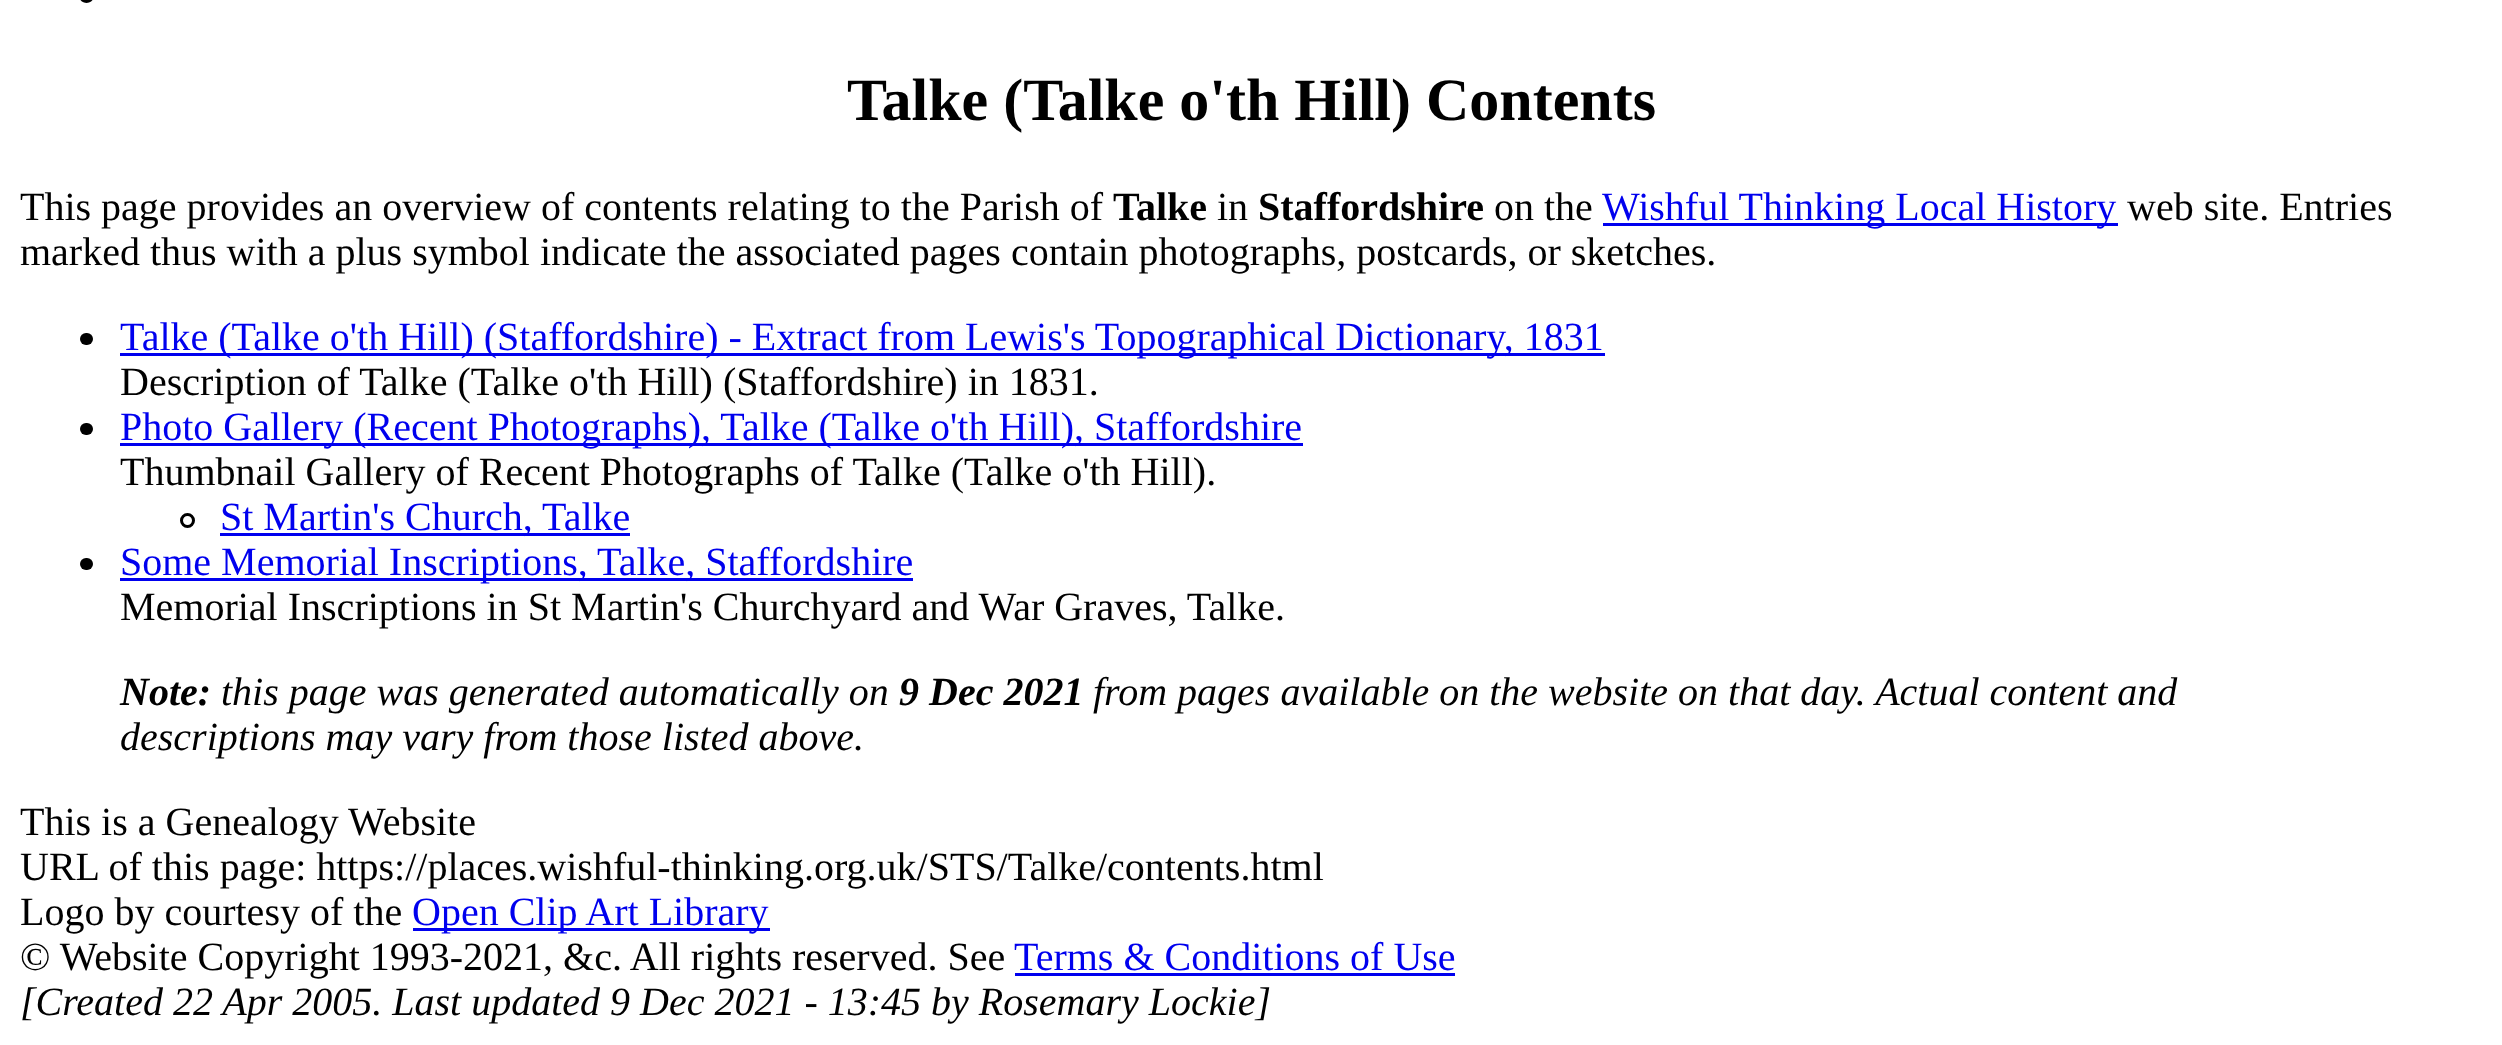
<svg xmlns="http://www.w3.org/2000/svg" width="2502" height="1045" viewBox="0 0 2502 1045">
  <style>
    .t1 { font: bold 60px Liberation Serif; fill: #000; }
    .t2 { font: 40px Liberation Serif; fill: #000; }
    .t3 { font: bold 40px Liberation Serif; fill: #000; }
    .t4 { font: 40px Liberation Serif; fill: #00e; }
    .t5 { font: italic bold 40px Liberation Serif; fill: #000; }
    .t6 { font: italic 40px Liberation Serif; fill: #000; }
  </style>
  <rect width="100%" height="100%" fill="#fff"/>
  <rect x="80" y="-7" width="13" height="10" rx="6.5" fill="#000"/>
  <text x="847" y="120" class="t1">Talke (Talke o'th Hill) Contents</text>
  <text x="20" y="220" class="t2">This page provides an overview of contents relating to the Parish of</text>
  <text x="1113" y="220" class="t3">Talke</text>
  <text x="1217" y="220" class="t2">in</text>
  <text x="1258" y="220" class="t3">Staffordshire</text>
  <text x="1494" y="220" class="t2">on the</text>
  <rect x="1603" y="223" width="515" height="3" fill="#00e"/>
  <text x="1602" y="220" class="t4">Wishful Thinking Local History</text>
  <text x="2127" y="220" class="t2">web site. Entries</text>
  <text x="20" y="265" class="t2">marked thus with a plus symbol indicate the associated pages contain photographs, postcards, or sketches.</text>
  <rect x="80" y="333" width="13" height="12" rx="6" fill="#000"/>
  <rect x="120" y="353" width="1485" height="3" fill="#00e"/>
  <text x="120" y="350" class="t4">Talke (Talke o'th Hill) (Staffordshire) - Extract from Lewis's Topographical Dictionary, 1831</text>
  <text x="120" y="395" class="t2">Description of Talke (Talke o'th Hill) (Staffordshire) in 1831.</text>
  <rect x="80" y="423" width="13" height="12" rx="6" fill="#000"/>
  <rect x="120" y="443" width="1183" height="3" fill="#00e"/>
  <text x="120" y="440" class="t4">Photo Gallery (Recent Photographs), Talke (Talke o'th Hill), Staffordshire</text>
  <text x="120" y="485" class="t2">Thumbnail Gallery of Recent Photographs of Talke (Talke o'th Hill).</text>
  <circle cx="187.5" cy="520.5" r="6" fill="none" stroke="#000" stroke-width="3"/>
  <rect x="220" y="533" width="410" height="3" fill="#00e"/>
  <text x="220" y="530" class="t4">St Martin's Church, Talke</text>
  <rect x="80" y="558" width="13" height="12" rx="6" fill="#000"/>
  <rect x="120" y="578" width="793" height="3" fill="#00e"/>
  <text x="120" y="575" class="t4">Some Memorial Inscriptions, Talke, Staffordshire</text>
  <text x="120" y="620" class="t2">Memorial Inscriptions in St Martin's Churchyard and War Graves, Talke.</text>
  <text x="120" y="705" class="t5">Note:</text>
  <text x="221" y="705" class="t6">this page was generated automatically on</text>
  <text x="899" y="705" class="t5">9 Dec 2021</text>
  <text x="1093" y="705" class="t6">from pages available on the website on that day. Actual content and</text>
  <text x="120" y="750" class="t6">descriptions may vary from those listed above.</text>
  <text x="20" y="835" class="t2">This is a Genealogy Website</text>
  <text x="20" y="880" class="t2">URL of this page: https://places.wishful-thinking.org.uk/STS/Talke/contents.html</text>
  <text x="20" y="925" class="t2">Logo by courtesy of the</text>
  <rect x="413" y="928" width="357" height="3" fill="#00e"/>
  <text x="412" y="925" class="t4">Open Clip Art Library</text>
  <text x="20" y="970" class="t2">© Website Copyright 1993-2021, &amp;c. All rights reserved. See</text>
  <text x="1014" y="970" class="t4">Terms &amp; Conditions of Use</text>
  <rect x="1015" y="973" width="440" height="3" fill="#00e"/>
  <text x="20" y="1015" class="t6">[Created 22 Apr 2005. Last updated 9 Dec 2021 - 13:45 by Rosemary Lockie]</text>
</svg>
